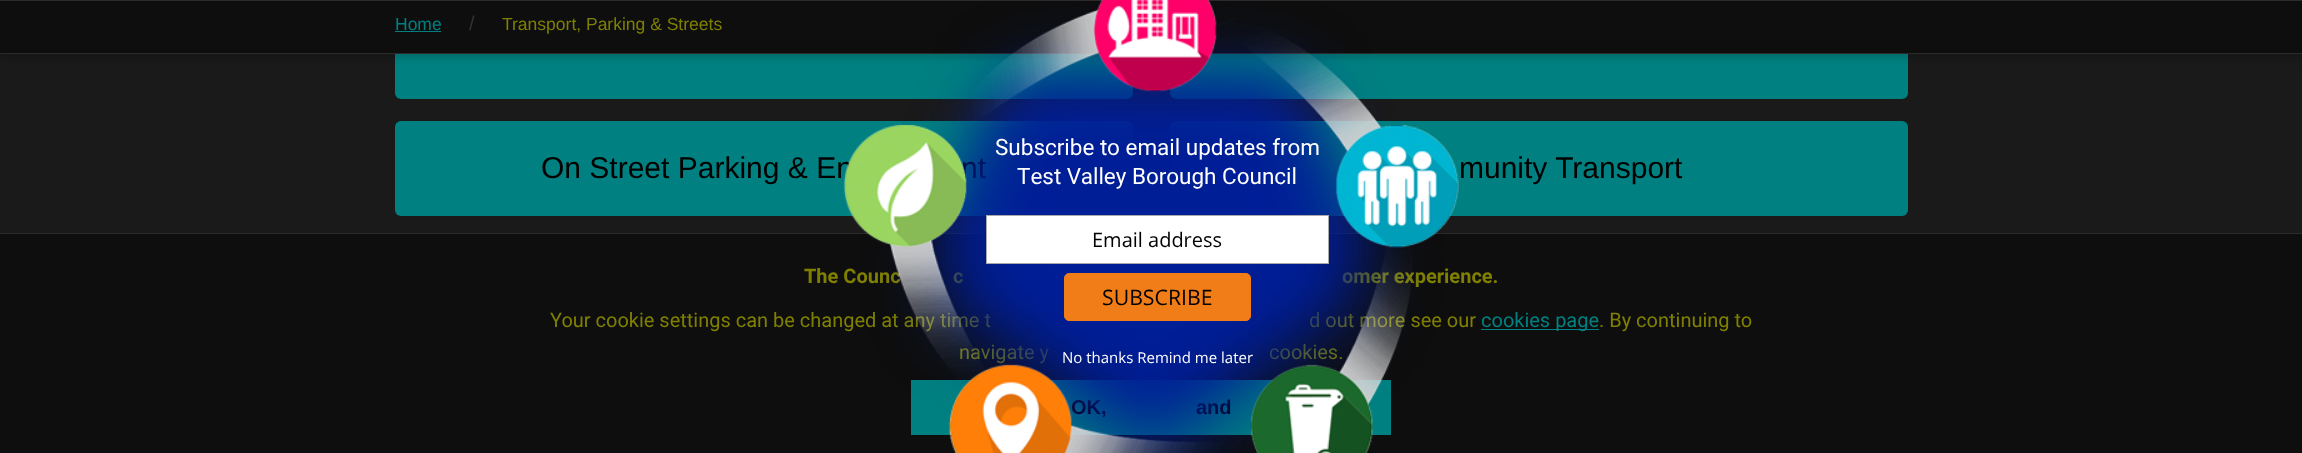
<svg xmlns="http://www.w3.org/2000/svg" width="2302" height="453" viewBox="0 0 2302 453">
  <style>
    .t1 { font: 17.5px Liberation Sans; fill: #008080; }
    .t2 { font: 20px Liberation Sans; fill: #333; }
    .t3 { font: 17.5px Liberation Sans; fill: #808000; }
    .t4 { font: 30px Liberation Sans; fill: #000; }
    .t5 { font: bold 20px Roboto; fill: #808000; }
    .t6 { font: 20px Roboto; fill: #808000; }
    .t7 { font: bold 20px Liberation Sans; fill: #000; }
    .t8 { font: 22.5px Roboto; fill: #fff; }
    .t9 { font: 20px Open Sans; fill: #000; }
    .t10 { font: 21.25px Open Sans; fill: #000; }
    .t11 { font: 15px Open Sans; fill: #fff; }
    .t12 { font: 20px Roboto; fill: #008080; }
  </style>
  <rect width="100%" height="100%" fill="#1a1a1a"/>
  <rect x="395" y="4" width="738" height="95" rx="6" fill="#008080"/>
  <rect x="1170" y="4" width="738" height="95" rx="6" fill="#008080"/>
  <rect x="0" y="4" width="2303" height="54" fill="#00000026" filter="blur(3px)"/>
  <rect x="0" y="1" width="2302" height="52" fill="#0e0e0e"/>
  <rect x="0" y="0" width="2302" height="1" fill="#2b2b2b"/>
  <rect x="0" y="53" width="2302" height="1" fill="#2b2b2b"/>
  <text x="395" y="30" class="t1">Home</text>
  <rect x="395" y="31" width="46" height="1" fill="#008080"/>
  <text x="469" y="30" class="t2">/</text>
  <text x="502" y="30" class="t3">Transport, Parking &amp; Streets</text>
  <rect x="395" y="121" width="738" height="95" rx="6" fill="#008080"/>
  <text x="541" y="178" class="t4">On Street Parking &amp; En</text>
  <text x="961" y="178" class="t4">nt</text>
  <rect x="1170" y="121" width="738" height="95" rx="6" fill="#008080"/>
  <rect x="0" y="234" width="2302" height="219" fill="#0e0e0e"/>
  <rect x="0" y="233" width="2302" height="1" fill="#2b2b2b"/>
  <text x="804" y="283" class="t5">The Counc</text>
  <text x="953" y="283" class="t5">c</text>
  <text x="1342" y="283" class="t5">omer experience.</text>
  <text x="550" y="327" class="t6">Your cookie settings can be changed at any time t</text>
  <text x="1309" y="327" class="t6">d out more see our</text>
  <text x="959" y="359" class="t6">navigate y</text>
  <text x="1269" y="359" class="t6">cookies.</text>
  <rect x="911" y="380" width="480" height="55" fill="#008080"/>
  <text x="1071" y="414" class="t7">OK,</text>
  <text x="1196" y="414" class="t7">and</text>
  <image x="843" y="0" width="616" height="453" href="images/1.png"/>
  <text x="995" y="155" class="t8">Subscribe to email updates from</text>
  <text x="1017" y="184" class="t8">Test Valley Borough Council</text>
  <rect x="986.5" y="215.5" width="342" height="48" fill="#fff" stroke="#aaa"/>
  <text x="1092" y="247" class="t9">Email address</text>
  <rect x="1064.5" y="273.5" width="186" height="47" rx="4.5" fill="#f07d17" stroke="#f07d17"/>
  <text x="1102" y="305" class="t10">SUBSCRIBE</text>
  <text x="1062" y="363" class="t11">No thanks Remind me later</text>
  <text x="1459" y="178" class="t4">munity Transport</text>
  <rect x="1481" y="329" width="118" height="1" fill="#008080"/>
  <text x="1481" y="327" class="t12">cookies page</text>
  <text x="1599" y="327" class="t6">. By continuing to</text>
</svg>
